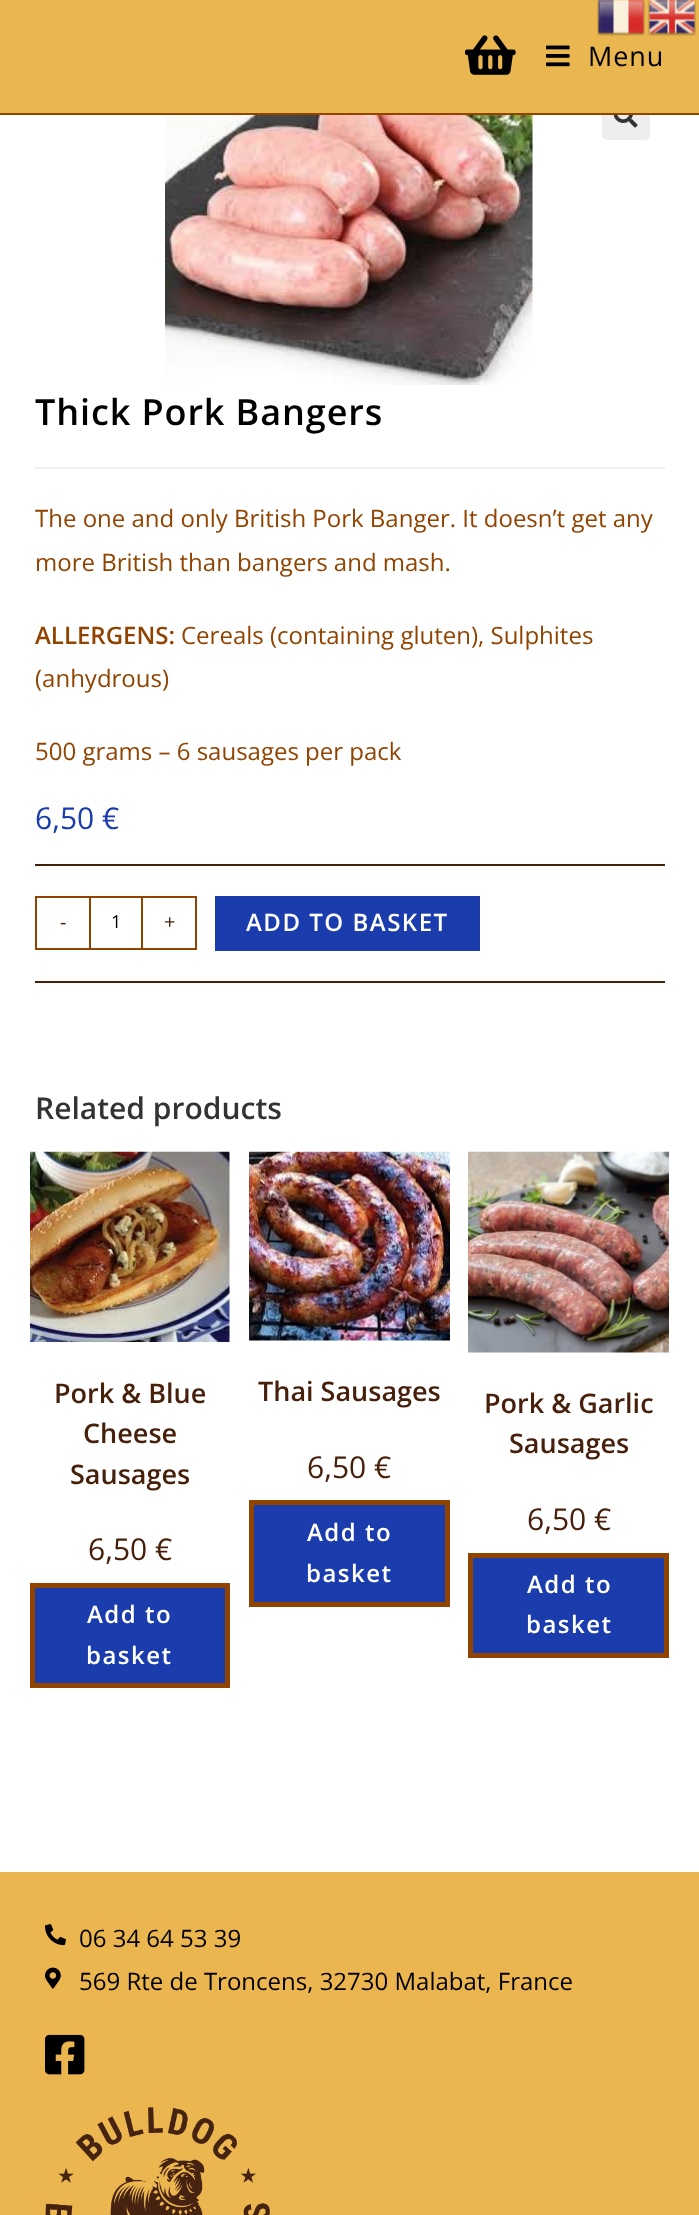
<svg xmlns="http://www.w3.org/2000/svg" width="699" height="2215" viewBox="0 0 699 2215">
  <style>
    .t1 { font: 27px Open Sans; letter-spacing: 0.9px; fill: #000; }
    .t2 { font: 600 36px Open Sans; letter-spacing: 0.9px; fill: #000; }
    .t3 { font: 24px Open Sans; fill: #914300; }
    .t4 { font: 600 24px Open Sans; fill: #914300; }
    .t5 { font: 30px Open Sans; fill: #1a3cad; }
    .t6 { font: 20px Open Sans; fill: #47200b; }
    .t7 { font: 18px Open Sans; fill: #000; }
    .t8 { font: 600 24px Open Sans; letter-spacing: 1.5px; fill: #fff; }
    .t9 { font: 600 30px Open Sans; fill: #333; }
    .t10 { font: 600 27px Open Sans; fill: #47200b; }
    .t11 { font: 30px Open Sans; fill: #47200b; }
    .t12 { font: 24px Open Sans; fill: #000; }
  </style>
  <rect width="100%" height="100%" fill="#fff"/>
  <rect x="602" y="92" width="48" height="48" rx="5" fill="#eee"/>
  <rect x="0" y="0" width="699" height="113" fill="#eab64f"/>
  <image x="597" y="0" width="48" height="36" href="images/1.png"/>
  <image x="648" y="0" width="48" height="36" href="images/2.png"/>
  <rect x="0" y="113" width="699" height="2" fill="#914300"/>
  <image x="465" y="35" width="51" height="40" href="images/3.png"/>
  <image x="546" y="45" width="24" height="22" href="images/4.png"/>
  <text x="588" y="66" class="t1">Menu</text>
  <image x="165" y="115" width="368" height="270" href="images/5.png"/>
  <image x="613" y="115" width="25" height="13" href="images/6.png"/>
  <rect x="35" y="467" width="630" height="2" fill="#f1f1f1"/>
  <text x="35" y="425" class="t2">Thick Pork Bangers</text>
  <text x="35" y="527" class="t3">The one and only British Pork Banger. It doesn’t get any</text>
  <text x="35" y="571" class="t3">more British than bangers and mash.</text>
  <text x="35" y="644" class="t4">ALLERGENS:</text>
  <text x="181" y="644" class="t3">Cereals (containing gluten), Sulphites</text>
  <text x="35" y="687" class="t3">(anhydrous)</text>
  <text x="35" y="760" class="t3">500 grams – 6 sausages per pack</text>
  <text x="35" y="829" class="t5">6,50 €</text>
  <rect x="35" y="864" width="630" height="2" fill="#47200b"/>
  <rect x="35" y="981" width="630" height="2" fill="#47200b"/>
  <rect x="35" y="896" width="54" height="2" fill="#914300"/>
  <rect x="35" y="948" width="54" height="2" fill="#914300"/>
  <rect x="35" y="896" width="2" height="54" fill="#914300"/>
  <text x="60" y="929" class="t6">-</text>
  <rect x="90" y="897" width="52" height="52" fill="none" stroke="#914300" stroke-width="2"/>
  <text x="111" y="928" class="t7">1</text>
  <rect x="143" y="896" width="54" height="2" fill="#914300"/>
  <rect x="195" y="896" width="2" height="54" fill="#914300"/>
  <rect x="143" y="948" width="54" height="2" fill="#914300"/>
  <text x="164" y="929" class="t6">+</text>
  <rect x="215" y="896" width="265" height="55" fill="#1a3cad"/>
  <text x="246" y="931" class="t8">ADD TO BASKET</text>
  <text x="35" y="1119" class="t9">Related products</text>
  <image x="30" y="1151" width="200" height="191" href="images/7.png"/>
  <text x="54" y="1403" class="t10">Pork &amp; Blue</text>
  <text x="83" y="1443" class="t10">Cheese</text>
  <text x="70" y="1484" class="t10">Sausages</text>
  <text x="88" y="1560" class="t11">6,50 €</text>
  <rect x="32.5" y="1585.5" width="195" height="100" fill="#1a3cad" stroke="#914300" stroke-width="5"/>
  <text x="87" y="1623" class="t8">Add to</text>
  <text x="86" y="1664" class="t8">basket</text>
  <image x="249" y="1151" width="201" height="190" href="images/8.png"/>
  <text x="258" y="1401" class="t10">Thai Sausages</text>
  <text x="307" y="1478" class="t11">6,50 €</text>
  <rect x="251.5" y="1502.5" width="196" height="102" fill="#1a3cad" stroke="#914300" stroke-width="5"/>
  <text x="307" y="1541" class="t8">Add to</text>
  <text x="306" y="1582" class="t8">basket</text>
  <image x="468" y="1151" width="201" height="202" href="images/9.png"/>
  <text x="484" y="1413" class="t10">Pork &amp; Garlic</text>
  <text x="509" y="1453" class="t10">Sausages</text>
  <text x="527" y="1530" class="t11">6,50 €</text>
  <rect x="470.5" y="1555.5" width="196" height="100" fill="#1a3cad" stroke="#914300" stroke-width="5"/>
  <text x="527" y="1593" class="t8">Add to</text>
  <text x="526" y="1633" class="t8">basket</text>
  <rect x="0" y="1872" width="699" height="343" fill="#ebb64f"/>
  <image x="45" y="1924" width="21" height="22" href="images/10.png"/>
  <text x="79" y="1947" class="t12">06 34 64 53 39</text>
  <image x="45" y="1967" width="16" height="22" href="images/11.png"/>
  <text x="79" y="1990" class="t12">569 Rte de Troncens, 32730 Malabat, France</text>
  <image x="45" y="2034" width="40" height="41" href="images/12.png"/>
  <image x="45" y="2107" width="225" height="108" href="images/13.png"/>
</svg>
